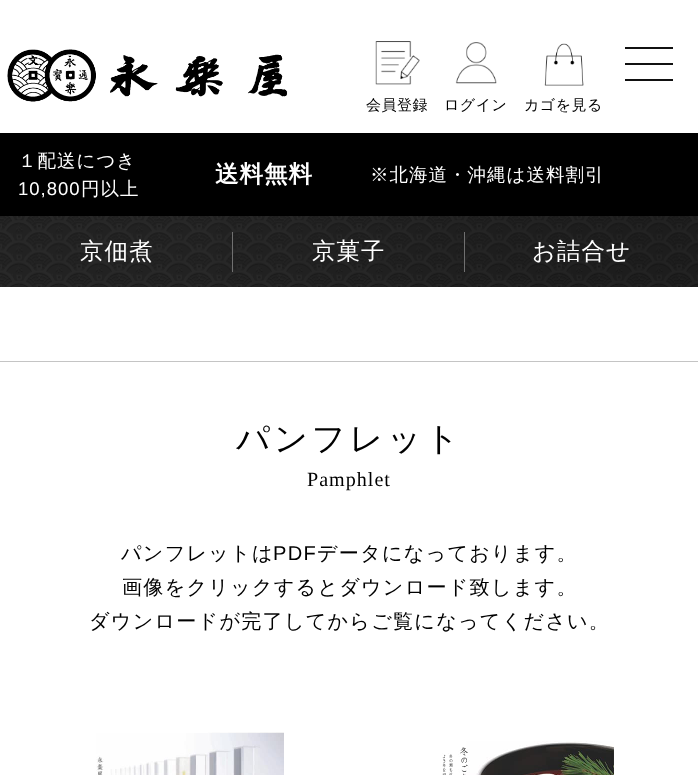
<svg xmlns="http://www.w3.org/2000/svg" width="698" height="775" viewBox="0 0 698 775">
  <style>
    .t1 { font: 500 15px WenQuanYi Zen Hei; letter-spacing: 0.5px; fill: #000; }
    .t2 { font: 500 18.5px WenQuanYi Zen Hei; letter-spacing: 1px; fill: #fff; }
    .t3 { font: 18.5px Liberation Sans; letter-spacing: 1px; fill: #fff; }
    .t4 { font: bold 23.5px WenQuanYi Zen Hei; letter-spacing: 1px; fill: #fff; }
    .t5 { font: 500 23.5px WenQuanYi Zen Hei; letter-spacing: 1px; fill: #fff; }
    .t6 { font: 500 33.5px WenQuanYi Zen Hei; letter-spacing: 3.5px; fill: #000; }
    .t7 { font: 20.1px Liberation Serif; letter-spacing: 1px; fill: #000; }
    .t8 { font: 500 20.1px WenQuanYi Zen Hei; letter-spacing: 1.25px; fill: #000; }
    .t9 { font: 20.1px Liberation Sans; letter-spacing: 1.25px; fill: #000; }
  </style>
  <rect width="100%" height="100%" fill="#fff"/>
  <image x="7" y="49" width="281" height="53" href="images/1.png"/>
  <rect x="625" y="47" width="48" height="2" fill="#111"/>
  <rect x="625" y="63" width="48" height="2" fill="#111"/>
  <rect x="625" y="79" width="48" height="2" fill="#111"/>
  <image x="375" y="41" width="45" height="44" href="images/2.png"/>
  <text x="366" y="110" class="t1">会員登録</text>
  <image x="455" y="42" width="42" height="42" href="images/3.png"/>
  <text x="444" y="110" class="t1">ログイン</text>
  <image x="544" y="43" width="40" height="43" href="images/4.png"/>
  <text x="524" y="110" class="t1">カゴを見る</text>
  <rect x="0" y="133" width="698" height="83" fill="#000"/>
  <text x="18" y="167" class="t2">１配送につき</text>
  <text x="18" y="195" class="t3">10,800</text>
  <text x="81" y="195" class="t2">円以上</text>
  <text x="215" y="182" class="t4">送料無料</text>
  <text x="370" y="181" class="t2">※北海道・沖縄は送料割引</text>
  <image x="0" y="216" width="698" height="71" href="images/5.png"/>
  <text x="80" y="259" class="t5">京佃煮</text>
  <rect x="232" y="232" width="1" height="40" fill="#707070"/>
  <text x="312" y="259" class="t5">京菓子</text>
  <rect x="464" y="232" width="1" height="40" fill="#707070"/>
  <text x="532" y="259" class="t5">お詰合せ</text>
  <rect x="0" y="361" width="698" height="1" fill="#c4c4c4"/>
  <text x="236" y="450" class="t6">パンフレット</text>
  <text x="307" y="486" class="t7">Pamphlet</text>
  <text x="121" y="560" class="t8">パンフレットは</text>
  <text x="273" y="560" class="t9">PDF</text>
  <text x="317" y="560" class="t8">データになっております。</text>
  <text x="122" y="594" class="t8">画像をクリックするとダウンロード致します。</text>
  <text x="89" y="628" class="t8">ダウンロードが完了してからご覧になってください。</text>
  <image x="96" y="732" width="188" height="43" href="images/6.png"/>
  <image x="442" y="741" width="172" height="34" href="images/7.png"/>
</svg>
